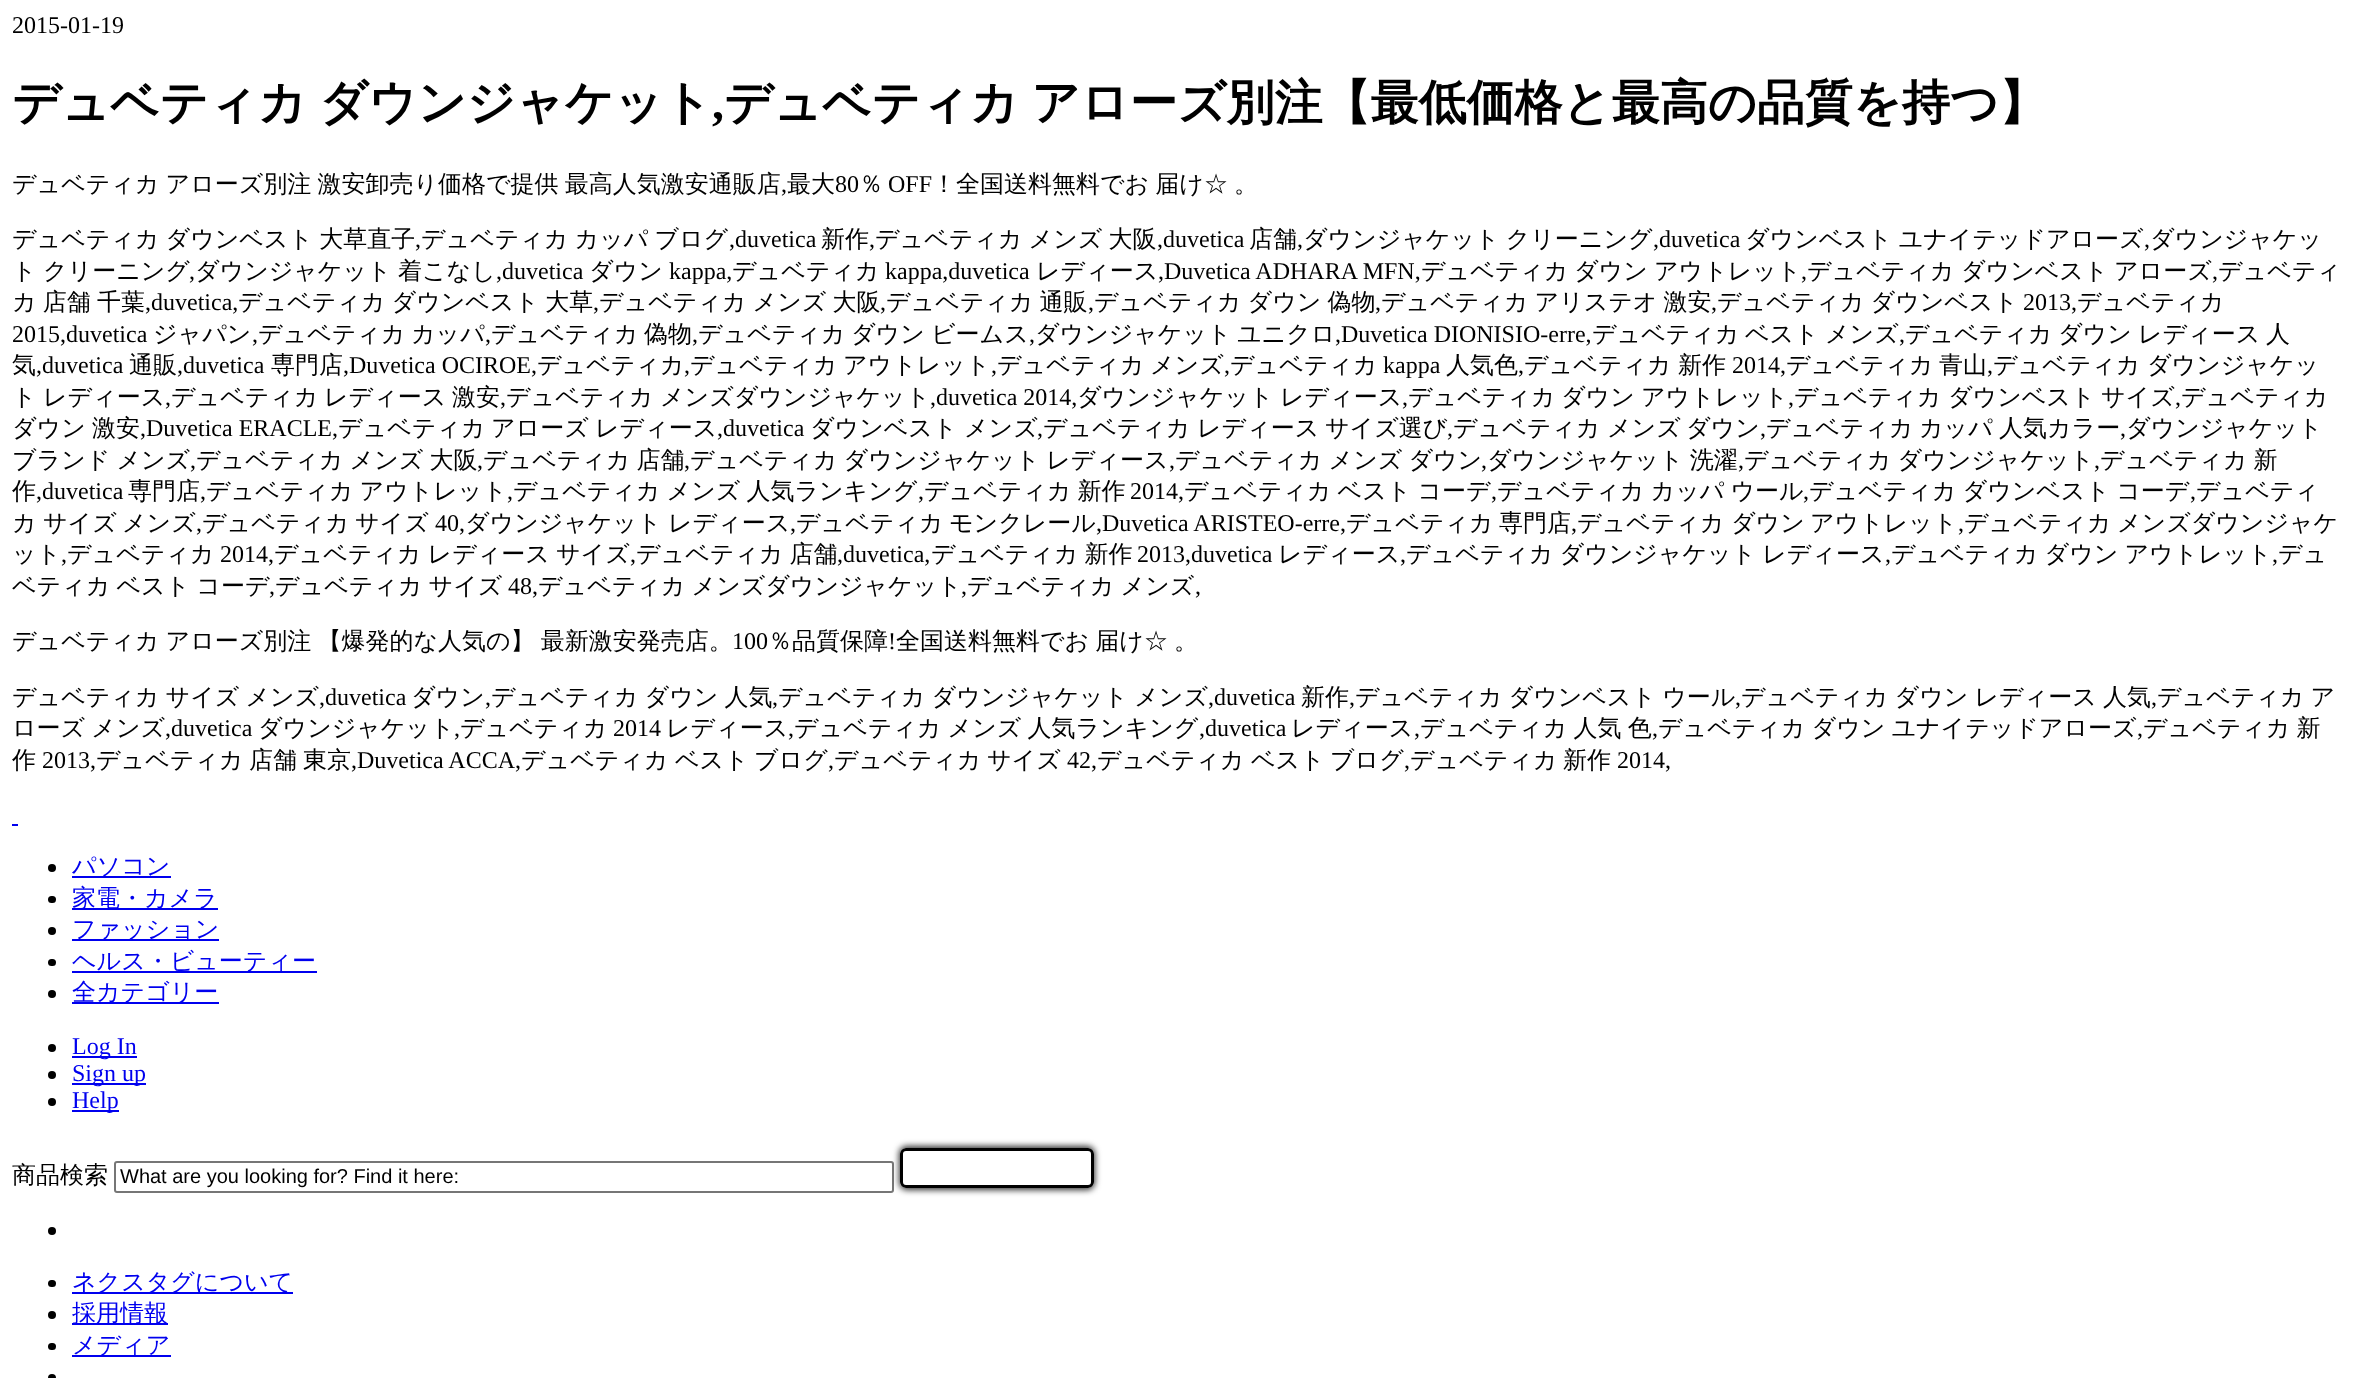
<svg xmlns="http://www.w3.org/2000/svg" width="2353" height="1378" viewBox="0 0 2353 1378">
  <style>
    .t1 { font: 24px Liberation Serif; fill: #000; }
    .t2 { font: bold 48px WenQuanYi Zen Hei; fill: #000; }
    .t3 { font: bold 48px Liberation Serif; fill: #000; }
    .t4 { font: 500 24px WenQuanYi Zen Hei; fill: #000; }
    .t5 { font: 500 24px WenQuanYi Zen Hei; fill: #00e; }
    .t6 { font: 24px Liberation Serif; fill: #00e; }
    .t7 { font: 20px Liberation Sans; fill: #000; }
  </style>
  <defs>
    <clipPath id="clip1"><path d="M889 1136H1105V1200H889ZM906 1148H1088C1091.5 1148 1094 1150.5 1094 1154V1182C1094 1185.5 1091.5 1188 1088 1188H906C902.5 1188 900 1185.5 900 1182V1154C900 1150.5 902.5 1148 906 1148Z" clip-rule="evenodd"/></clipPath>
  </defs>
  <rect width="100%" height="100%" fill="#fff"/>
  <text x="12" y="33" class="t1">2015-01-19</text>
  <text x="12" y="119" word-spacing="-2" class="t2">デュベティカ ダウンジャケット</text>
  <text x="712" y="119" class="t3">,</text>
  <text x="724" y="119" word-spacing="-2" class="t2">デュベティカ アローズ別注【最低価格と最高の品質を持つ】</text>
  <text x="12" y="192" word-spacing="-1" class="t4">デュベティカ アローズ別注 激安卸売り価格で提供 最高人気激安通販店</text>
  <text x="781" y="192" class="t1">,</text>
  <text x="787" y="192" class="t4">最大</text>
  <text x="835" y="192" class="t1">80</text>
  <text x="859" y="192" class="t4">％</text>
  <text x="888" y="192" class="t1">OFF</text>
  <text x="932" y="192" word-spacing="-1" class="t4">！全国送料無料でお 届け☆ 。</text>
  <text x="12" y="247" word-spacing="-1" class="t4">デュベティカ ダウンベスト 大草直子</text>
  <text x="415" y="247" class="t1">,</text>
  <text x="421" y="247" word-spacing="-1" class="t4">デュベティカ カッパ ブログ</text>
  <text x="729" y="247" class="t1">,duvetica</text>
  <text x="821" y="247" class="t4">新作</text>
  <text x="869" y="247" class="t1">,</text>
  <text x="875" y="247" word-spacing="-1" class="t4">デュベティカ メンズ 大阪</text>
  <text x="1157" y="247" class="t1">,duvetica</text>
  <text x="1249" y="247" class="t4">店舗</text>
  <text x="1297" y="247" class="t1">,</text>
  <text x="1303" y="247" word-spacing="-1" class="t4">ダウンジャケット クリーニング</text>
  <text x="1653" y="247" class="t1">,duvetica</text>
  <text x="1745" y="247" word-spacing="-1" class="t4">ダウンベスト ユナイテッドアローズ</text>
  <text x="2144" y="247" class="t1">,</text>
  <text x="2150" y="247" class="t4">ダウンジャケッ</text>
  <text x="12" y="279" class="t4">ト</text>
  <text x="43" y="279" class="t4">クリーニング</text>
  <text x="189" y="279" class="t1">,</text>
  <text x="195" y="279" class="t4">ダウンジャケット</text>
  <text x="398" y="279" class="t4">着こなし</text>
  <text x="496" y="279" class="t1">,duvetica</text>
  <text x="589" y="279" class="t4">ダウン</text>
  <text x="669" y="279" class="t1">kappa,</text>
  <text x="732" y="279" class="t4">デュベティカ</text>
  <text x="885" y="279" class="t1">kappa,duvetica</text>
  <text x="1036" y="279" class="t4">レディース</text>
  <text x="1158" y="279" class="t1">,Duvetica ADHARA MFN,</text>
  <text x="1421" y="279" class="t4">デュベティカ</text>
  <text x="1574" y="279" class="t4">ダウン</text>
  <text x="1654" y="279" class="t4">アウトレット</text>
  <text x="1801" y="279" class="t1">,</text>
  <text x="1807" y="279" class="t4">デュベティカ</text>
  <text x="1961" y="279" class="t4">ダウンベスト</text>
  <text x="2114" y="279" class="t4">アローズ</text>
  <text x="2212" y="279" class="t1">,</text>
  <text x="2218" y="279" class="t4">デュベティ</text>
  <text x="12" y="310" word-spacing="-1" class="t4">カ 店舗 千葉</text>
  <text x="145" y="310" class="t1">,duvetica,</text>
  <text x="238" y="310" word-spacing="-1" class="t4">デュベティカ ダウンベスト 大草</text>
  <text x="593" y="310" class="t1">,</text>
  <text x="599" y="310" word-spacing="-1" class="t4">デュベティカ メンズ 大阪</text>
  <text x="880" y="310" class="t1">,</text>
  <text x="886" y="310" word-spacing="-1" class="t4">デュベティカ 通販</text>
  <text x="1088" y="310" class="t1">,</text>
  <text x="1094" y="310" word-spacing="-1" class="t4">デュベティカ ダウン 偽物</text>
  <text x="1375" y="310" class="t1">,</text>
  <text x="1381" y="310" word-spacing="-1" class="t4">デュベティカ アリステオ 激安</text>
  <text x="1711" y="310" class="t1">,</text>
  <text x="1717" y="310" word-spacing="-1" class="t4">デュベティカ ダウンベスト</text>
  <text x="2023" y="310" class="t1">2013,</text>
  <text x="2077" y="310" class="t4">デュベティカ</text>
  <text x="12" y="342" class="t1">2015,duvetica</text>
  <text x="153" y="342" class="t4">ジャパン</text>
  <text x="252" y="342" class="t1">,</text>
  <text x="258" y="342" class="t4">デュベティカ</text>
  <text x="411" y="342" class="t4">カッパ</text>
  <text x="485" y="342" class="t1">,</text>
  <text x="491" y="342" class="t4">デュベティカ</text>
  <text x="644" y="342" class="t4">偽物</text>
  <text x="692" y="342" class="t1">,</text>
  <text x="698" y="342" class="t4">デュベティカ</text>
  <text x="851" y="342" class="t4">ダウン</text>
  <text x="931" y="342" class="t4">ビームス</text>
  <text x="1029" y="342" class="t1">,</text>
  <text x="1035" y="342" class="t4">ダウンジャケット</text>
  <text x="1237" y="342" class="t4">ユニクロ</text>
  <text x="1335" y="342" class="t1">,Duvetica DIONISIO-erre,</text>
  <text x="1592" y="342" class="t4">デュベティカ</text>
  <text x="1745" y="342" class="t4">ベスト</text>
  <text x="1825" y="342" class="t4">メンズ</text>
  <text x="1899" y="342" class="t1">,</text>
  <text x="1905" y="342" class="t4">デュベティカ</text>
  <text x="2058" y="342" class="t4">ダウン</text>
  <text x="2138" y="342" class="t4">レディース</text>
  <text x="2266" y="342" class="t4">人</text>
  <text x="12" y="373" class="t4">気</text>
  <text x="36" y="373" class="t1">,duvetica</text>
  <text x="129" y="373" class="t4">通販</text>
  <text x="177" y="373" class="t1">,duvetica</text>
  <text x="271" y="373" class="t4">専門店</text>
  <text x="343" y="373" class="t1">,Duvetica OCIROE,</text>
  <text x="537" y="373" class="t4">デュベティカ</text>
  <text x="684" y="373" class="t1">,</text>
  <text x="690" y="373" class="t4">デュベティカ</text>
  <text x="843" y="373" class="t4">アウトレット</text>
  <text x="991" y="373" class="t1">,</text>
  <text x="997" y="373" class="t4">デュベティカ</text>
  <text x="1150" y="373" class="t4">メンズ</text>
  <text x="1224" y="373" class="t1">,</text>
  <text x="1230" y="373" class="t4">デュベティカ</text>
  <text x="1383" y="373" class="t1">kappa</text>
  <text x="1446" y="373" class="t4">人気色</text>
  <text x="1518" y="373" class="t1">,</text>
  <text x="1524" y="373" class="t4">デュベティカ</text>
  <text x="1678" y="373" class="t4">新作</text>
  <text x="1732" y="373" class="t1">2014,</text>
  <text x="1786" y="373" class="t4">デュベティカ</text>
  <text x="1939" y="373" class="t4">青山</text>
  <text x="1987" y="373" class="t1">,</text>
  <text x="1993" y="373" class="t4">デュベティカ</text>
  <text x="2147" y="373" class="t4">ダウンジャケッ</text>
  <text x="12" y="405" class="t4">ト</text>
  <text x="43" y="405" class="t4">レディース</text>
  <text x="165" y="405" class="t1">,</text>
  <text x="171" y="405" class="t4">デュベティカ</text>
  <text x="324" y="405" class="t4">レディース</text>
  <text x="452" y="405" class="t4">激安</text>
  <text x="500" y="405" class="t1">,</text>
  <text x="506" y="405" class="t4">デュベティカ</text>
  <text x="660" y="405" class="t4">メンズダウンジャケット</text>
  <text x="930" y="405" class="t1">,duvetica 2014,</text>
  <text x="1077" y="405" class="t4">ダウンジャケット</text>
  <text x="1280" y="405" class="t4">レディース</text>
  <text x="1402" y="405" class="t1">,</text>
  <text x="1408" y="405" class="t4">デュベティカ</text>
  <text x="1561" y="405" class="t4">ダウン</text>
  <text x="1641" y="405" class="t4">アウトレット</text>
  <text x="1788" y="405" class="t1">,</text>
  <text x="1794" y="405" class="t4">デュベティカ</text>
  <text x="1948" y="405" class="t4">ダウンベスト</text>
  <text x="2101" y="405" class="t4">サイズ</text>
  <text x="2175" y="405" class="t1">,</text>
  <text x="2181" y="405" class="t4">デュベティカ</text>
  <text x="12" y="436" class="t4">ダウン</text>
  <text x="92" y="436" class="t4">激安</text>
  <text x="140" y="436" class="t1">,Duvetica ERACLE,</text>
  <text x="338" y="436" class="t4">デュベティカ</text>
  <text x="491" y="436" class="t4">アローズ</text>
  <text x="595" y="436" class="t4">レディース</text>
  <text x="717" y="436" class="t1">,duvetica</text>
  <text x="810" y="436" class="t4">ダウンベスト</text>
  <text x="964" y="436" class="t4">メンズ</text>
  <text x="1037" y="436" class="t1">,</text>
  <text x="1043" y="436" class="t4">デュベティカ</text>
  <text x="1197" y="436" class="t4">レディース</text>
  <text x="1325" y="436" class="t4">サイズ選び</text>
  <text x="1447" y="436" class="t1">,</text>
  <text x="1453" y="436" class="t4">デュベティカ</text>
  <text x="1607" y="436" class="t4">メンズ</text>
  <text x="1686" y="436" class="t4">ダウン</text>
  <text x="1760" y="436" class="t1">,</text>
  <text x="1766" y="436" class="t4">デュベティカ</text>
  <text x="1919" y="436" class="t4">カッパ</text>
  <text x="1999" y="436" class="t4">人気カラー</text>
  <text x="2120" y="436" class="t1">,</text>
  <text x="2126" y="436" class="t4">ダウンジャケット</text>
  <text x="12" y="468" word-spacing="-1" class="t4">ブランド メンズ</text>
  <text x="190" y="468" class="t1">,</text>
  <text x="196" y="468" word-spacing="-1" class="t4">デュベティカ メンズ 大阪</text>
  <text x="477" y="468" class="t1">,</text>
  <text x="483" y="468" word-spacing="-1" class="t4">デュベティカ 店舗</text>
  <text x="684" y="468" class="t1">,</text>
  <text x="690" y="468" word-spacing="-1" class="t4">デュベティカ ダウンジャケット レディース</text>
  <text x="1169" y="468" class="t1">,</text>
  <text x="1175" y="468" word-spacing="-1" class="t4">デュベティカ メンズ ダウン</text>
  <text x="1481" y="468" class="t1">,</text>
  <text x="1487" y="468" word-spacing="-1" class="t4">ダウンジャケット 洗濯</text>
  <text x="1738" y="468" class="t1">,</text>
  <text x="1744" y="468" word-spacing="-1" class="t4">デュベティカ ダウンジャケット</text>
  <text x="2094" y="468" class="t1">,</text>
  <text x="2100" y="468" word-spacing="-1" class="t4">デュベティカ 新</text>
  <text x="12" y="499" class="t4">作</text>
  <text x="36" y="499" class="t1">,duvetica</text>
  <text x="128" y="499" class="t4">専門店</text>
  <text x="200" y="499" class="t1">,</text>
  <text x="206" y="499" word-spacing="-1" class="t4">デュベティカ アウトレット</text>
  <text x="507" y="499" class="t1">,</text>
  <text x="513" y="499" word-spacing="-1" class="t4">デュベティカ メンズ 人気ランキング</text>
  <text x="918" y="499" class="t1">,</text>
  <text x="924" y="499" word-spacing="-1" class="t4">デュベティカ 新作</text>
  <text x="1130" y="499" class="t1">2014,</text>
  <text x="1184" y="499" word-spacing="-1" class="t4">デュベティカ ベスト コーデ</text>
  <text x="1491" y="499" class="t1">,</text>
  <text x="1497" y="499" word-spacing="-1" class="t4">デュベティカ カッパ ウール</text>
  <text x="1803" y="499" class="t1">,</text>
  <text x="1809" y="499" word-spacing="-1" class="t4">デュベティカ ダウンベスト コーデ</text>
  <text x="2190" y="499" class="t1">,</text>
  <text x="2196" y="499" class="t4">デュベティ</text>
  <text x="12" y="531" class="t4">カ</text>
  <text x="43" y="531" class="t4">サイズ</text>
  <text x="122" y="531" class="t4">メンズ</text>
  <text x="196" y="531" class="t1">,</text>
  <text x="202" y="531" class="t4">デュベティカ</text>
  <text x="355" y="531" class="t4">サイズ</text>
  <text x="435" y="531" class="t1">40,</text>
  <text x="465" y="531" class="t4">ダウンジャケット</text>
  <text x="668" y="531" class="t4">レディース</text>
  <text x="790" y="531" class="t1">,</text>
  <text x="796" y="531" class="t4">デュベティカ</text>
  <text x="949" y="531" class="t4">モンクレール</text>
  <text x="1096" y="531" class="t1">,Duvetica ARISTEO-erre,</text>
  <text x="1346" y="531" class="t4">デュベティカ</text>
  <text x="1499" y="531" class="t4">専門店</text>
  <text x="1571" y="531" class="t1">,</text>
  <text x="1577" y="531" class="t4">デュベティカ</text>
  <text x="1731" y="531" class="t4">ダウン</text>
  <text x="1810" y="531" class="t4">アウトレット</text>
  <text x="1958" y="531" class="t1">,</text>
  <text x="1964" y="531" class="t4">デュベティカ</text>
  <text x="2117" y="531" class="t4">メンズダウンジャケ</text>
  <text x="12" y="562" class="t4">ット</text>
  <text x="61" y="562" class="t1">,</text>
  <text x="67" y="562" class="t4">デュベティカ</text>
  <text x="220" y="562" class="t1">2014,</text>
  <text x="274" y="562" word-spacing="-1" class="t4">デュベティカ レディース サイズ</text>
  <text x="630" y="562" class="t1">,</text>
  <text x="636" y="562" word-spacing="-1" class="t4">デュベティカ 店舗</text>
  <text x="837" y="562" class="t1">,duvetica,</text>
  <text x="931" y="562" word-spacing="-1" class="t4">デュベティカ 新作</text>
  <text x="1137" y="562" class="t1">2013,duvetica</text>
  <text x="1278" y="562" class="t4">レディース</text>
  <text x="1400" y="562" class="t1">,</text>
  <text x="1406" y="562" word-spacing="-1" class="t4">デュベティカ ダウンジャケット レディース</text>
  <text x="1885" y="562" class="t1">,</text>
  <text x="1891" y="562" word-spacing="-1" class="t4">デュベティカ ダウン アウトレット</text>
  <text x="2272" y="562" class="t1">,</text>
  <text x="2278" y="562" class="t4">デュ</text>
  <text x="12" y="594" word-spacing="-1" class="t4">ベティカ ベスト コーデ</text>
  <text x="269" y="594" class="t1">,</text>
  <text x="275" y="594" word-spacing="-1" class="t4">デュベティカ サイズ</text>
  <text x="508" y="594" class="t1">48,</text>
  <text x="538" y="594" word-spacing="-1" class="t4">デュベティカ メンズダウンジャケット</text>
  <text x="961" y="594" class="t1">,</text>
  <text x="967" y="594" word-spacing="-1" class="t4">デュベティカ メンズ</text>
  <text x="1195" y="594" class="t1">,</text>
  <text x="12" y="649" word-spacing="-1" class="t4">デュベティカ アローズ別注 【爆発的な人気の】 最新激安発売店。</text>
  <text x="732" y="649" class="t1">100</text>
  <text x="768" y="649" class="t4">％品質保障</text>
  <text x="888" y="649" class="t1">!</text>
  <text x="896" y="649" word-spacing="-1" class="t4">全国送料無料でお 届け☆ 。</text>
  <text x="12" y="705" word-spacing="-1" class="t4">デュベティカ サイズ メンズ</text>
  <text x="319" y="705" class="t1">,duvetica</text>
  <text x="411" y="705" class="t4">ダウン</text>
  <text x="485" y="705" class="t1">,</text>
  <text x="491" y="705" word-spacing="-1" class="t4">デュベティカ ダウン 人気</text>
  <text x="772" y="705" class="t1">,</text>
  <text x="778" y="705" word-spacing="-1" class="t4">デュベティカ ダウンジャケット メンズ</text>
  <text x="1208" y="705" class="t1">,duvetica</text>
  <text x="1301" y="705" class="t4">新作</text>
  <text x="1349" y="705" class="t1">,</text>
  <text x="1355" y="705" word-spacing="-1" class="t4">デュベティカ ダウンベスト ウール</text>
  <text x="1735" y="705" class="t1">,</text>
  <text x="1741" y="705" word-spacing="-1" class="t4">デュベティカ ダウン レディース 人気</text>
  <text x="2151" y="705" class="t1">,</text>
  <text x="2157" y="705" word-spacing="-1" class="t4">デュベティカ ア</text>
  <text x="12" y="736" word-spacing="-1" class="t4">ローズ メンズ</text>
  <text x="165" y="736" class="t1">,duvetica</text>
  <text x="258" y="736" class="t4">ダウンジャケット</text>
  <text x="454" y="736" class="t1">,</text>
  <text x="460" y="736" class="t4">デュベティカ</text>
  <text x="613" y="736" class="t1">2014</text>
  <text x="666" y="736" class="t4">レディース</text>
  <text x="788" y="736" class="t1">,</text>
  <text x="794" y="736" word-spacing="-1" class="t4">デュベティカ メンズ 人気ランキング</text>
  <text x="1199" y="736" class="t1">,duvetica</text>
  <text x="1291" y="736" class="t4">レディース</text>
  <text x="1414" y="736" class="t1">,</text>
  <text x="1420" y="736" word-spacing="-1" class="t4">デュベティカ 人気 色</text>
  <text x="1652" y="736" class="t1">,</text>
  <text x="1658" y="736" word-spacing="-1" class="t4">デュベティカ ダウン ユナイテッドアローズ</text>
  <text x="2137" y="736" class="t1">,</text>
  <text x="2143" y="736" word-spacing="-1" class="t4">デュベティカ 新</text>
  <text x="12" y="768" class="t4">作</text>
  <text x="42" y="768" class="t1">2013,</text>
  <text x="96" y="768" class="t4">デュベティカ</text>
  <text x="249" y="768" class="t4">店舗</text>
  <text x="303" y="768" class="t4">東京</text>
  <text x="351" y="768" class="t1">,Duvetica ACCA,</text>
  <text x="521" y="768" class="t4">デュベティカ</text>
  <text x="675" y="768" class="t4">ベスト</text>
  <text x="754" y="768" class="t4">ブログ</text>
  <text x="828" y="768" class="t1">,</text>
  <text x="834" y="768" class="t4">デュベティカ</text>
  <text x="987" y="768" class="t4">サイズ</text>
  <text x="1067" y="768" class="t1">42,</text>
  <text x="1097" y="768" class="t4">デュベティカ</text>
  <text x="1251" y="768" class="t4">ベスト</text>
  <text x="1330" y="768" class="t4">ブログ</text>
  <text x="1404" y="768" class="t1">,</text>
  <text x="1410" y="768" class="t4">デュベティカ</text>
  <text x="1563" y="768" class="t4">新作</text>
  <text x="1617" y="768" class="t1">2014,</text>
  <rect x="12" y="824" width="6" height="2" fill="#00e"/>
  <circle cx="52" cy="868" r="4" fill="#000"/>
  <rect x="72" y="876" width="99" height="2" fill="#00e"/>
  <text x="72" y="874" class="t5">パソコン</text>
  <rect x="48" y="896" width="8" height="7" rx="3.5" fill="#000"/>
  <rect x="72" y="908" width="146" height="2" fill="#00e"/>
  <text x="72" y="906" class="t5">家電・カメラ</text>
  <circle cx="52" cy="931" r="4" fill="#000"/>
  <rect x="72" y="939" width="147" height="2" fill="#00e"/>
  <text x="72" y="937" class="t5">ファッション</text>
  <rect x="48" y="959" width="8" height="7" rx="3.5" fill="#000"/>
  <rect x="72" y="971" width="245" height="2" fill="#00e"/>
  <text x="72" y="969" class="t5">ヘルス・ビューティー</text>
  <circle cx="52" cy="994" r="4" fill="#000"/>
  <rect x="72" y="1002" width="147" height="2" fill="#00e"/>
  <text x="72" y="1000" class="t5">全カテゴリー</text>
  <circle cx="52" cy="1048" r="4" fill="#000"/>
  <rect x="72" y="1056" width="65" height="2" fill="#00e"/>
  <text x="72" y="1054" class="t6">Log In</text>
  <circle cx="52" cy="1075" r="4" fill="#000"/>
  <rect x="72" y="1083" width="74" height="2" fill="#00e"/>
  <text x="72" y="1081" class="t6">Sign up</text>
  <circle cx="52" cy="1102" r="4" fill="#000"/>
  <rect x="72" y="1110" width="47" height="2" fill="#00e"/>
  <text x="72" y="1108" class="t6">Help</text>
  <text x="12" y="1183" class="t4">商品検索</text>
  <rect x="115" y="1162" width="778" height="30" rx="2" fill="none" stroke="#767676" stroke-width="2"/>
  <text x="120" y="1183" class="t7">What are you looking for? Find it here:</text>
  <g clip-path="url(#clip1)">
    <rect x="899" y="1146" width="196" height="44" rx="8" fill="#333" filter="blur(3px)"/>
  </g>
  <rect x="901.5" y="1149.5" width="191" height="37" rx="4.5" fill="none" stroke="#000" stroke-width="3"/>
  <circle cx="52" cy="1231" r="4" fill="#000"/>
  <rect x="48" y="1280" width="8" height="7" rx="3.5" fill="#000"/>
  <rect x="72" y="1292" width="221" height="2" fill="#00e"/>
  <text x="72" y="1290" class="t5">ネクスタグについて</text>
  <circle cx="52" cy="1315" r="4" fill="#000"/>
  <rect x="72" y="1323" width="96" height="2" fill="#00e"/>
  <text x="72" y="1321" class="t5">採用情報</text>
  <rect x="48" y="1343" width="8" height="7" rx="3.5" fill="#000"/>
  <rect x="72" y="1355" width="99" height="2" fill="#00e"/>
  <text x="72" y="1353" class="t5">メディア</text>
  <circle cx="52" cy="1378" r="4" fill="#000"/>
</svg>
